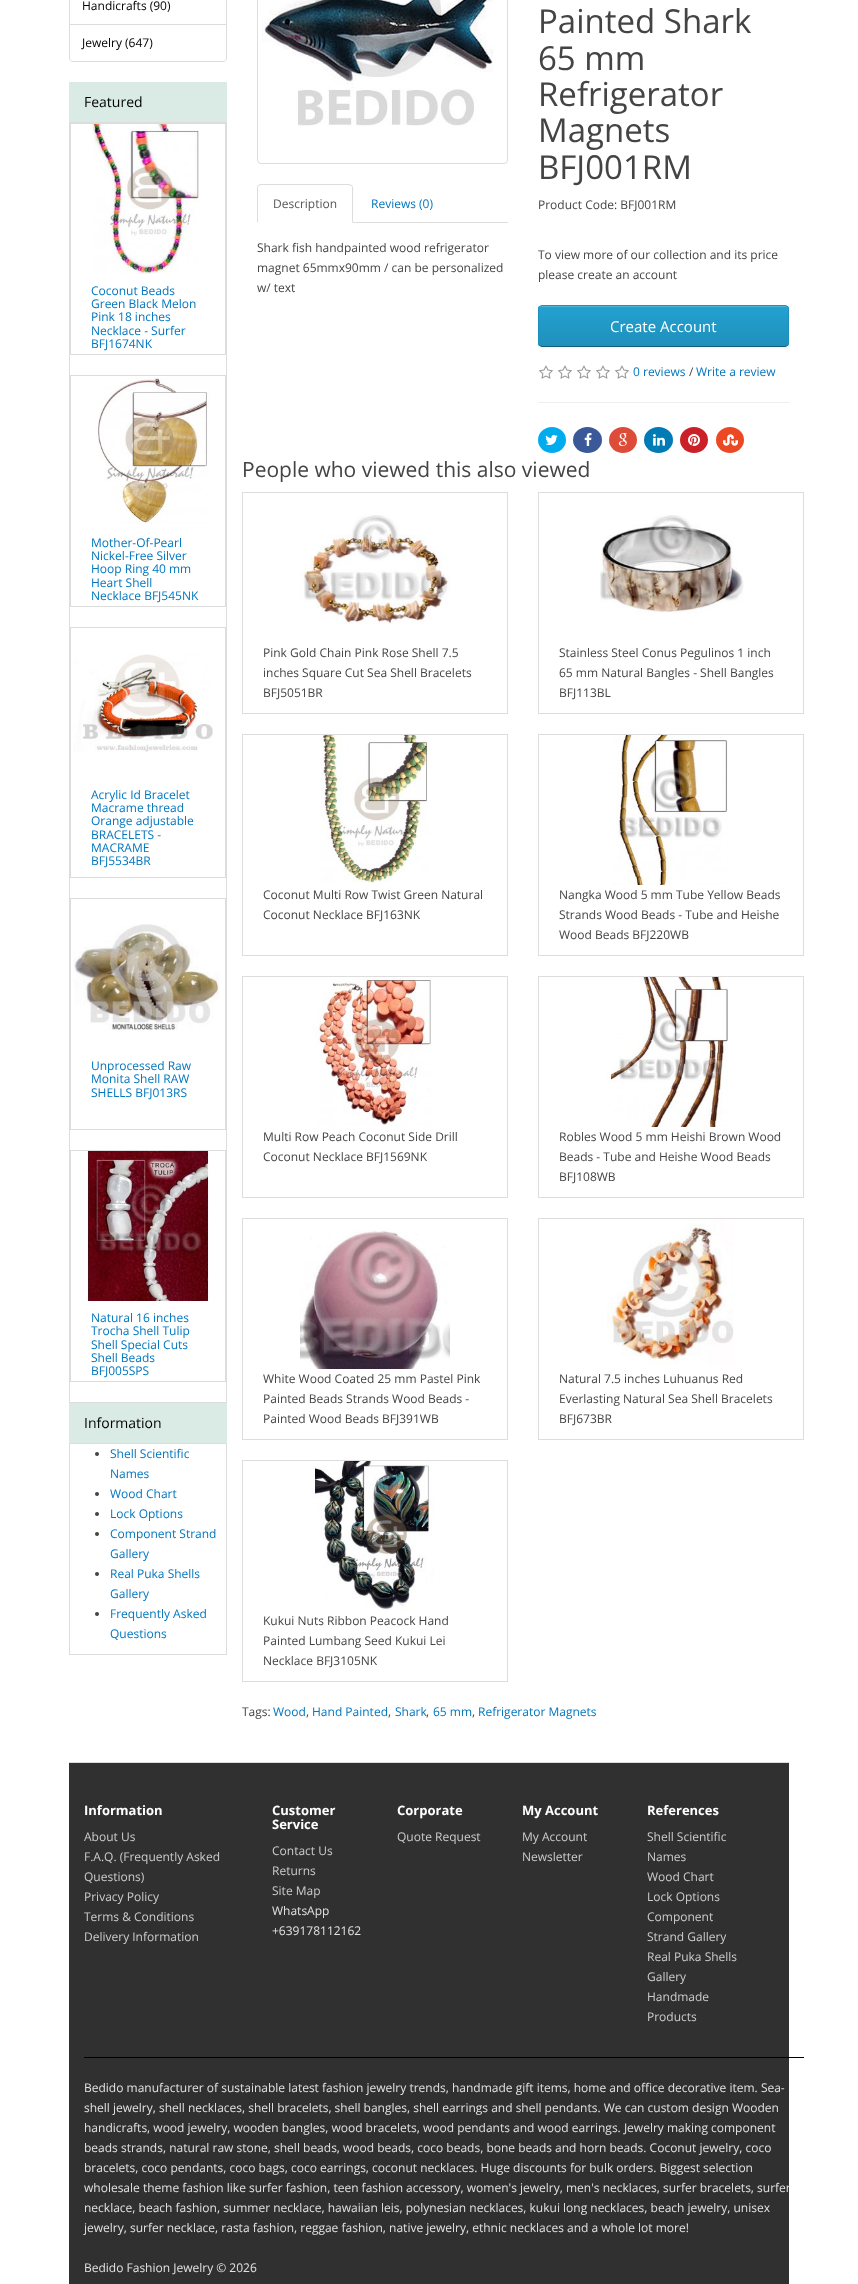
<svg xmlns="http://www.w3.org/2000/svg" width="858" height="2284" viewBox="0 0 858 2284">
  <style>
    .t1 { font: 12px Open Sans; fill: #000; }
    .t2 { font: 14px Open Sans; fill: #000; }
    .t3 { font: 12px Open Sans; fill: #0076be; }
    .t4 { font: 12px Open Sans; fill: #555; }
    .t5 { font: 12px Open Sans; fill: #444; }
    .t6 { font: 33px Open Sans; fill: #444; }
    .t7 { font: 15px Open Sans; fill: #fff; }
    .t8 { font: 21px Open Sans; fill: #444; }
    .t9 { font: bold 13px Open Sans; fill: #fff; }
    .t10 { font: 12px Open Sans; fill: #ccc; }
    .t11 { font: 12px Open Sans; fill: #e2e2e2; }
  </style>
  <defs>
    <clipPath id="clip1"><rect x="538" y="305" width="251" height="42" rx="4"/></clipPath>
    <linearGradient id="g1" gradientUnits="userSpaceOnUse" x1="664" y1="306" x2="664" y2="346"><stop offset="0" stop-color="#23a1d1"/><stop offset="1" stop-color="#1f90bb"/></linearGradient>
  </defs>
  <rect width="100%" height="100%" fill="#fff"/>
  <rect x="69.5" y="-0.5" width="157" height="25" fill="none" stroke="#ddd"/>
  <text x="82" y="10" class="t1">Handicrafts (90)</text>
  <path d="M69.5 24.5H226.5V58C226.5 60 225 61.5 223 61.5H73C71 61.5 69.5 60 69.5 58Z" fill="#fff" stroke="#ddd"/>
  <text x="82" y="47" class="t1">Jewelry (647)</text>
  <rect x="69" y="82" width="158" height="40" fill="#daebe5"/>
  <text x="84" y="107" class="t2">Featured</text>
  <rect x="69.5" y="122.5" width="157" height="1280" fill="none" stroke="#ddd"/>
  <rect x="70.5" y="123.5" width="155" height="231" fill="none" stroke="#ddd"/>
  <image x="92" y="124" width="107" height="150" href="images/1.png"/>
  <text x="91" y="295" class="t3">Coconut Beads</text>
  <text x="91" y="308" class="t3">Green Black Melon</text>
  <text x="91" y="321" class="t3">Pink 18 inches</text>
  <text x="91" y="335" class="t3">Necklace - Surfer</text>
  <text x="91" y="348" class="t3">BFJ1674NK</text>
  <rect x="70.5" y="375.5" width="155" height="231" fill="none" stroke="#ddd"/>
  <image x="97" y="377" width="113" height="147" href="images/2.png"/>
  <text x="91" y="547" class="t3">Mother-Of-Pearl</text>
  <text x="91" y="560" class="t3">Nickel-Free Silver</text>
  <text x="91" y="573" class="t3">Hoop Ring 40 mm</text>
  <text x="91" y="587" class="t3">Heart Shell</text>
  <text x="91" y="600" class="t3">Necklace BFJ545NK</text>
  <rect x="70.5" y="627.5" width="155" height="250" fill="none" stroke="#ddd"/>
  <image x="73" y="654" width="140" height="98" href="images/3.png"/>
  <text x="91" y="799" class="t3">Acrylic Id Bracelet</text>
  <text x="91" y="812" class="t3">Macrame thread</text>
  <text x="91" y="825" class="t3">Orange adjustable</text>
  <text x="91" y="839" class="t3">BRACELETS -</text>
  <text x="91" y="852" class="t3">MACRAME</text>
  <text x="91" y="865" class="t3">BFJ5534BR</text>
  <rect x="70.5" y="898.5" width="155" height="231" fill="none" stroke="#ddd"/>
  <image x="73" y="924" width="147" height="107" href="images/4.png"/>
  <text x="91" y="1070" class="t3">Unprocessed Raw</text>
  <text x="91" y="1083" class="t3">Monita Shell RAW</text>
  <text x="91" y="1097" class="t3">SHELLS BFJ013RS</text>
  <rect x="70.5" y="1150.5" width="155" height="231" fill="none" stroke="#ddd"/>
  <image x="87" y="1151" width="123" height="150" href="images/5.png"/>
  <text x="91" y="1322" class="t3">Natural 16 inches</text>
  <text x="91" y="1335" class="t3">Trocha Shell Tulip</text>
  <text x="91" y="1349" class="t3">Shell Special Cuts</text>
  <text x="91" y="1362" class="t3">Shell Beads</text>
  <text x="91" y="1375" class="t3">BFJ005SPS</text>
  <rect x="69" y="1403" width="158" height="40" fill="#daebe5"/>
  <text x="84" y="1428" class="t2">Information</text>
  <rect x="69.5" y="1443.5" width="157" height="211" fill="none" stroke="#ddd"/>
  <circle cx="97" cy="1454" r="2" fill="#444"/>
  <text x="110" y="1458" class="t3">Shell Scientific</text>
  <text x="110" y="1478" class="t3">Names</text>
  <circle cx="97" cy="1494" r="2" fill="#444"/>
  <text x="110" y="1498" class="t3">Wood Chart</text>
  <circle cx="97" cy="1514" r="2" fill="#444"/>
  <text x="110" y="1518" class="t3">Lock Options</text>
  <circle cx="97" cy="1534" r="2" fill="#444"/>
  <text x="110" y="1538" class="t3">Component Strand</text>
  <text x="110" y="1558" class="t3">Gallery</text>
  <circle cx="97" cy="1574" r="2" fill="#444"/>
  <text x="110" y="1578" class="t3">Real Puka Shells</text>
  <text x="110" y="1598" class="t3">Gallery</text>
  <circle cx="97" cy="1614" r="2" fill="#444"/>
  <text x="110" y="1618" class="t3">Frequently Asked</text>
  <text x="110" y="1638" class="t3">Questions</text>
  <rect x="257.5" y="-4.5" width="250" height="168" rx="3.5" fill="none" stroke="#ddd"/>
  <image x="262" y="0" width="232" height="126" href="images/6.png"/>
  <rect x="353" y="222" width="155" height="1" fill="#ddd"/>
  <path d="M261 184L258 185L259 186L261 185H349L351 186L352 185L349 184Z" fill="#ddd"/>
  <path d="M353 223V188C353 187 352.5 186 352 185L351 186C352 186 352 187 352 188V222Z" fill="#ddd"/>
  <path d="M257 223L258 222V188C258 187 258 186 259 186L258 185C257.5 186 257 187 257 188Z" fill="#ddd"/>
  <text x="273" y="208" class="t4">Description</text>
  <text x="371" y="208" class="t3">Reviews (0)</text>
  <text x="257" y="252" class="t5">Shark fish handpainted wood refrigerator</text>
  <text x="257" y="272" class="t5">magnet 65mmx90mm / can be personalized</text>
  <text x="257" y="292" class="t5">w/ text</text>
  <text x="538" y="33" class="t6">Painted Shark</text>
  <text x="538" y="70" class="t6">65 mm</text>
  <text x="538" y="106" class="t6">Refrigerator</text>
  <text x="538" y="142" class="t6">Magnets</text>
  <text x="538" y="179" class="t6">BFJ001RM</text>
  <text x="538" y="209" class="t5">Product Code: BFJ001RM</text>
  <text x="538" y="259" class="t5">To view more of our collection and its price</text>
  <text x="538" y="279" class="t5">please create an account</text>
  <rect x="538" y="306" width="251" height="42" rx="4" fill="#0000000d" filter="blur(1px)"/>
  <g clip-path="url(#clip1)">
    <rect x="538" y="306" width="251" height="40" fill="url(#g1)"/>
  </g>
  <path d="M542 307H786L788 308V310C788 308 787 306 785 306H542C540 306 539 308 539 310C539 308 540 307 542 307Z" fill="#4fb4da"/>
  <path d="M787.5 345.5C787 346 786 346.5 785 346.5H542C541 346.5 540 346 539.5 345.5" fill="none" stroke="#145e7a"/>
  <path d="M539.5 345.5C539 345 538.5 344 538.5 343V309C538.5 308 539 307 539.5 306.5C540 306 541 305.5 542 305.5H785C786 305.5 787 306 787.5 306.5C788 307 788.5 308 788.5 309V343C788.5 344 788 345 787.5 345.5" fill="none" stroke="#1f90bb"/>
  <text x="610" y="332" class="t7">Create Account</text>
  <image x="539" y="365" width="14" height="14" href="images/7.png"/>
  <image x="558" y="365" width="14" height="14" href="images/7.png"/>
  <image x="577" y="365" width="14" height="14" href="images/7.png"/>
  <image x="596" y="365" width="14" height="14" href="images/7.png"/>
  <image x="615" y="365" width="14" height="14" href="images/7.png"/>
  <text x="633" y="376" class="t3">0 reviews</text>
  <text x="689" y="376" class="t5">/</text>
  <text x="696" y="376" class="t3">Write a review</text>
  <rect x="538" y="402" width="251" height="1" fill="#eee"/>
  <ellipse cx="552" cy="440" rx="14" ry="13" fill="#00aced"/>
  <image x="545" y="435" width="13" height="10" href="images/8.png"/>
  <ellipse cx="587.5" cy="440" rx="14.5" ry="13" fill="#3b5998"/>
  <image x="584" y="433" width="8" height="13" href="images/9.png"/>
  <ellipse cx="623" cy="440" rx="14" ry="13" fill="#dd4b39"/>
  <image x="618" y="433" width="9" height="13" href="images/10.png"/>
  <ellipse cx="658.5" cy="440" rx="14.5" ry="13" fill="#007bb6"/>
  <image x="653" y="434" width="12" height="12" href="images/11.png"/>
  <ellipse cx="694" cy="440" rx="14" ry="13" fill="#cb2027"/>
  <image x="688" y="434" width="12" height="12" href="images/12.png"/>
  <ellipse cx="730" cy="440" rx="14" ry="13" fill="#eb4823"/>
  <image x="723" y="434" width="15" height="12" href="images/13.png"/>
  <text x="242" y="477" class="t8">People who viewed this also viewed</text>
  <rect x="242.5" y="492.5" width="265" height="221" fill="none" stroke="#ddd"/>
  <image x="300" y="515" width="150" height="110" href="images/14.png"/>
  <text x="263" y="657" class="t5">Pink Gold Chain Pink Rose Shell 7.5</text>
  <text x="263" y="677" class="t5">inches Square Cut Sea Shell Bracelets</text>
  <text x="263" y="697" class="t5">BFJ5051BR</text>
  <rect x="538.5" y="492.5" width="265" height="221" fill="none" stroke="#ddd"/>
  <image x="600" y="515" width="144" height="99" href="images/15.png"/>
  <text x="559" y="657" class="t5">Stainless Steel Conus Pegulinos 1 inch</text>
  <text x="559" y="677" class="t5">65 mm Natural Bangles - Shell Bangles</text>
  <text x="559" y="697" class="t5">BFJ113BL</text>
  <rect x="242.5" y="734.5" width="265" height="221" fill="none" stroke="#ddd"/>
  <image x="321" y="735" width="108" height="148" href="images/16.png"/>
  <text x="263" y="899" class="t5">Coconut Multi Row Twist Green Natural</text>
  <text x="263" y="919" class="t5">Coconut Necklace BFJ163NK</text>
  <rect x="538.5" y="734.5" width="265" height="221" fill="none" stroke="#ddd"/>
  <image x="612" y="735" width="116" height="150" href="images/17.png"/>
  <text x="559" y="899" class="t5">Nangka Wood 5 mm Tube Yellow Beads</text>
  <text x="559" y="919" class="t5">Strands Wood Beads - Tube and Heishe</text>
  <text x="559" y="939" class="t5">Wood Beads BFJ220WB</text>
  <rect x="242.5" y="976.5" width="265" height="221" fill="none" stroke="#ddd"/>
  <image x="312" y="977" width="120" height="149" href="images/18.png"/>
  <text x="263" y="1141" class="t5">Multi Row Peach Coconut Side Drill</text>
  <text x="263" y="1161" class="t5">Coconut Necklace BFJ1569NK</text>
  <rect x="538.5" y="976.5" width="265" height="221" fill="none" stroke="#ddd"/>
  <image x="607" y="977" width="121" height="150" href="images/19.png"/>
  <text x="559" y="1141" class="t5">Robles Wood 5 mm Heishi Brown Wood</text>
  <text x="559" y="1161" class="t5">Beads - Tube and Heishe Wood Beads</text>
  <text x="559" y="1181" class="t5">BFJ108WB</text>
  <rect x="242.5" y="1218.5" width="265" height="221" fill="none" stroke="#ddd"/>
  <image x="300" y="1230" width="150" height="139" href="images/20.png"/>
  <text x="263" y="1383" class="t5">White Wood Coated 25 mm Pastel Pink</text>
  <text x="263" y="1403" class="t5">Painted Beads Strands Wood Beads -</text>
  <text x="263" y="1423" class="t5">Painted Wood Beads BFJ391WB</text>
  <rect x="538.5" y="1218.5" width="265" height="221" fill="none" stroke="#ddd"/>
  <image x="606" y="1219" width="128" height="146" href="images/21.png"/>
  <text x="559" y="1383" class="t5">Natural 7.5 inches Luhuanus Red</text>
  <text x="559" y="1403" class="t5">Everlasting Natural Sea Shell Bracelets</text>
  <text x="559" y="1423" class="t5">BFJ673BR</text>
  <rect x="242.5" y="1460.5" width="265" height="221" fill="none" stroke="#ddd"/>
  <image x="311" y="1461" width="124" height="149" href="images/22.png"/>
  <text x="263" y="1625" class="t5">Kukui Nuts Ribbon Peacock Hand</text>
  <text x="263" y="1645" class="t5">Painted Lumbang Seed Kukui Lei</text>
  <text x="263" y="1665" class="t5">Necklace BFJ3105NK</text>
  <text x="242" y="1716" class="t5">Tags:</text>
  <text x="273" y="1716" class="t3">Wood</text>
  <text x="306" y="1716" class="t5">,</text>
  <text x="312" y="1716" class="t3">Hand Painted</text>
  <text x="388" y="1716" class="t5">,</text>
  <text x="395" y="1716" class="t3">Shark</text>
  <text x="426" y="1716" class="t5">,</text>
  <text x="433" y="1716" class="t3">65 mm</text>
  <text x="472" y="1716" class="t5">,</text>
  <text x="478" y="1716" class="t3">Refrigerator Magnets</text>
  <rect x="69" y="1763" width="720" height="521" fill="#303030"/>
  <rect x="69" y="1762" width="720" height="1" fill="#ddd"/>
  <text x="84" y="1815" class="t9">Information</text>
  <text x="84" y="1841" class="t10">About Us</text>
  <text x="84" y="1861" class="t10">F.A.Q. (Frequently Asked</text>
  <text x="84" y="1881" class="t10">Questions)</text>
  <text x="84" y="1901" class="t10">Privacy Policy</text>
  <text x="84" y="1921" class="t10">Terms &amp; Conditions</text>
  <text x="84" y="1941" class="t10">Delivery Information</text>
  <text x="272" y="1815" class="t9">Customer</text>
  <text x="272" y="1829" class="t9">Service</text>
  <text x="272" y="1855" class="t10">Contact Us</text>
  <text x="272" y="1875" class="t10">Returns</text>
  <text x="272" y="1895" class="t10">Site Map</text>
  <text x="272" y="1915" class="t11">WhatsApp</text>
  <text x="272" y="1935" class="t11">+639178112162</text>
  <text x="397" y="1815" class="t9">Corporate</text>
  <text x="397" y="1841" class="t10">Quote Request</text>
  <text x="522" y="1815" class="t9">My Account</text>
  <text x="522" y="1841" class="t10">My Account</text>
  <text x="522" y="1861" class="t10">Newsletter</text>
  <text x="647" y="1815" class="t9">References</text>
  <text x="647" y="1841" class="t10">Shell Scientific</text>
  <text x="647" y="1861" class="t10">Names</text>
  <text x="647" y="1881" class="t10">Wood Chart</text>
  <text x="647" y="1901" class="t10">Lock Options</text>
  <text x="647" y="1921" class="t10">Component</text>
  <text x="647" y="1941" class="t10">Strand Gallery</text>
  <text x="647" y="1961" class="t10">Real Puka Shells</text>
  <text x="647" y="1981" class="t10">Gallery</text>
  <text x="647" y="2001" class="t10">Handmade</text>
  <text x="647" y="2021" class="t10">Products</text>
  <rect x="84" y="2057" width="720" height="1" fill="#000"/>
  <text x="84" y="2092" class="t11">Bedido manufacturer of sustainable latest fashion jewelry trends, handmade gift items, home and office decorative item. Sea-</text>
  <text x="84" y="2112" class="t11">shell jewelry, shell necklaces, shell bracelets, shell bangles, shell earrings and shell pendants. We can custom design Wooden</text>
  <text x="84" y="2132" class="t11">handicrafts, wood jewelry, wooden bangles, wood bracelets, wood pendants and wood earrings. Jewelry making component</text>
  <text x="84" y="2152" class="t11">beads strands, natural raw stone, shell beads, wood beads, coco beads, bone beads and horn beads. Coconut jewelry, coco</text>
  <text x="84" y="2172" class="t11">bracelets, coco pendants, coco bags, coco earrings, coconut necklaces. Huge discounts for bulk orders. Biggest selection</text>
  <text x="84" y="2192" class="t11">wholesale theme fashion like surfer fashion, teen fashion accessory, women's jewelry, men's necklaces, surfer bracelets, surfer</text>
  <text x="84" y="2212" class="t11">necklace, beach fashion, summer necklace, hawaiian leis, polynesian necklaces, kukui long necklaces, beach jewelry, unisex</text>
  <text x="84" y="2232" class="t11">jewelry, surfer necklace, rasta fashion, reggae fashion, native jewelry, ethnic necklaces and a whole lot more!</text>
  <text x="84" y="2272" class="t11">Bedido Fashion Jewelry © 2026</text>
</svg>
